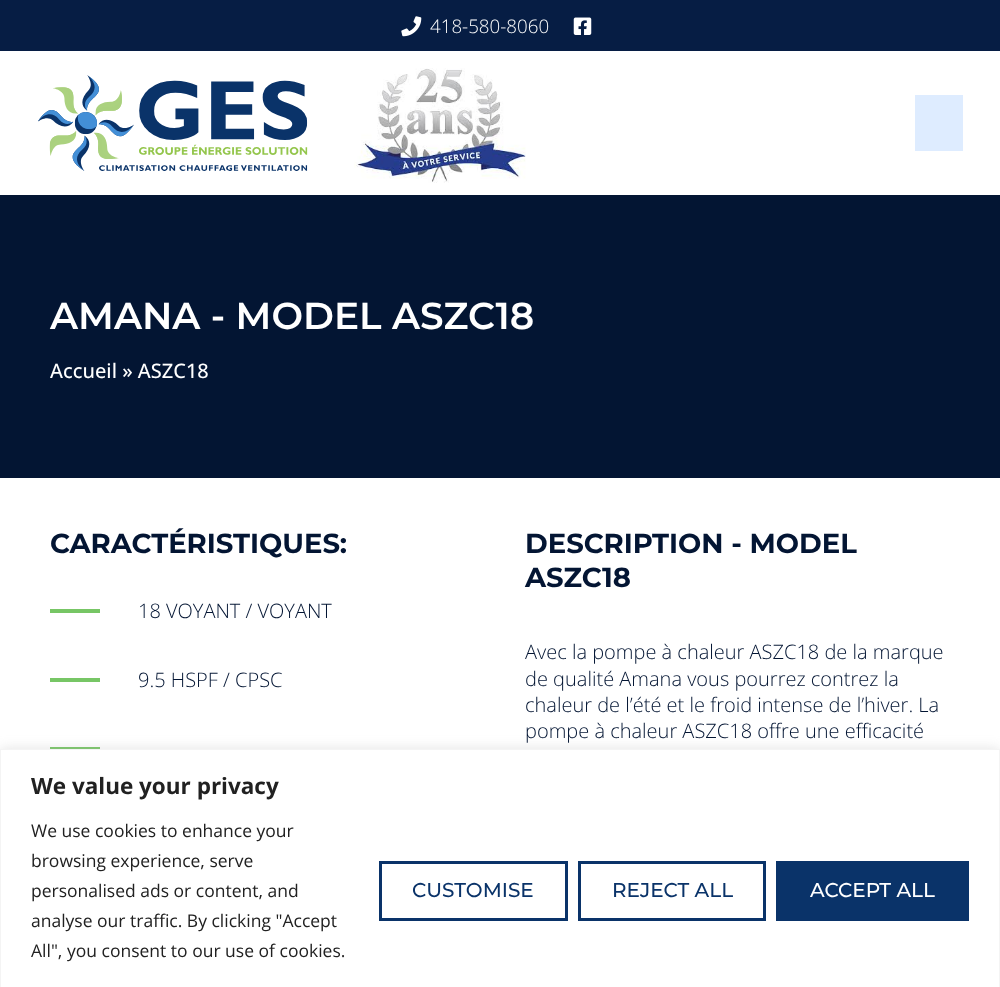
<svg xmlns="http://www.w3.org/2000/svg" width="1000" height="987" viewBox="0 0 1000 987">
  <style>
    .t1 { font: 300 18.75px Open Sans; fill: #fff; }
    .t2 { font: 600 37.5px Montserrat; fill: #fff; }
    .t3 { font: 500 20px Open Sans; fill: #fff; }
    .t4 { font: bold 27.5px Montserrat; fill: #031533; }
    .t5 { font: 300 20px Open Sans; fill: #031533; }
    .t6 { font: bold 22.5px Open Sans; fill: #212121; }
    .t7 { font: 17.5px Open Sans; fill: #212121; }
    .t8 { font: 500 20px Montserrat; fill: #0a3369; }
    .t9 { font: 500 20px Montserrat; fill: #fff; }
  </style>
  <rect width="100%" height="100%" fill="#fff"/>
  <rect x="0" y="0" width="1000" height="51" fill="#061d44"/>
  <image x="401" y="16" width="21" height="21" href="images/1.png"/>
  <text x="430" y="33" class="t1">418-580-8060</text>
  <image x="573" y="17" width="19" height="18" href="images/2.png"/>
  <image x="38" y="75" width="270" height="96" href="images/3.png"/>
  <image x="354" y="68" width="172" height="115" href="images/4.png"/>
  <rect x="915" y="95" width="48" height="56" fill="#deecff"/>
  <rect x="0" y="195" width="1000" height="283" fill="#031533"/>
  <text x="50" y="329" class="t2">AMANA - MODEL ASZC18</text>
  <text x="50" y="378" class="t3">Accueil » ASZC18</text>
  <text x="50" y="553" class="t4">CARACTÉRISTIQUES:</text>
  <rect x="50" y="609" width="50" height="4" fill="#77c665"/>
  <text x="138" y="618" class="t5">18 VOYANT / VOYANT</text>
  <rect x="50" y="678" width="50" height="4" fill="#77c665"/>
  <text x="138" y="687" class="t5">9.5 HSPF / CPSC</text>
  <rect x="50" y="747" width="50" height="2" fill="#77c665"/>
  <text x="525" y="553" class="t4">DESCRIPTION - MODEL</text>
  <text x="525" y="587" class="t4">ASZC18</text>
  <text x="525" y="659" class="t5">Avec la pompe à chaleur ASZC18 de la marque</text>
  <text x="525" y="686" class="t5">de qualité Amana vous pourrez contrez la</text>
  <text x="525" y="712" class="t5">chaleur de l’été et le froid intense de l’hiver. La</text>
  <text x="525" y="738" class="t5">pompe à chaleur ASZC18 offre une efficacité</text>
  <rect x="0" y="748" width="1000" height="238" fill="#acabab4d" filter="blur(6px)"/>
  <rect x="0.5" y="749.5" width="999" height="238" fill="#fff" stroke="#f4f4f4"/>
  <text x="31" y="794" class="t6">We value your privacy</text>
  <text x="31" y="837" class="t7">We use cookies to enhance your</text>
  <text x="31" y="867" class="t7">browsing experience, serve</text>
  <text x="31" y="897" class="t7">personalised ads or content, and</text>
  <text x="31" y="927" class="t7">analyse our traffic. By clicking "Accept</text>
  <text x="31" y="957" class="t7">All", you consent to our use of cookies.</text>
  <rect x="380.5" y="862.5" width="186" height="57" fill="none" stroke="#0a3369" stroke-width="3"/>
  <text x="412" y="897" class="t8">CUSTOMISE</text>
  <rect x="579.5" y="862.5" width="185" height="57" fill="none" stroke="#0a3369" stroke-width="3"/>
  <text x="612" y="897" class="t8">REJECT ALL</text>
  <rect x="776" y="861" width="193" height="60" fill="#0a3369"/>
  <text x="810" y="897" class="t9">ACCEPT ALL</text>
</svg>
